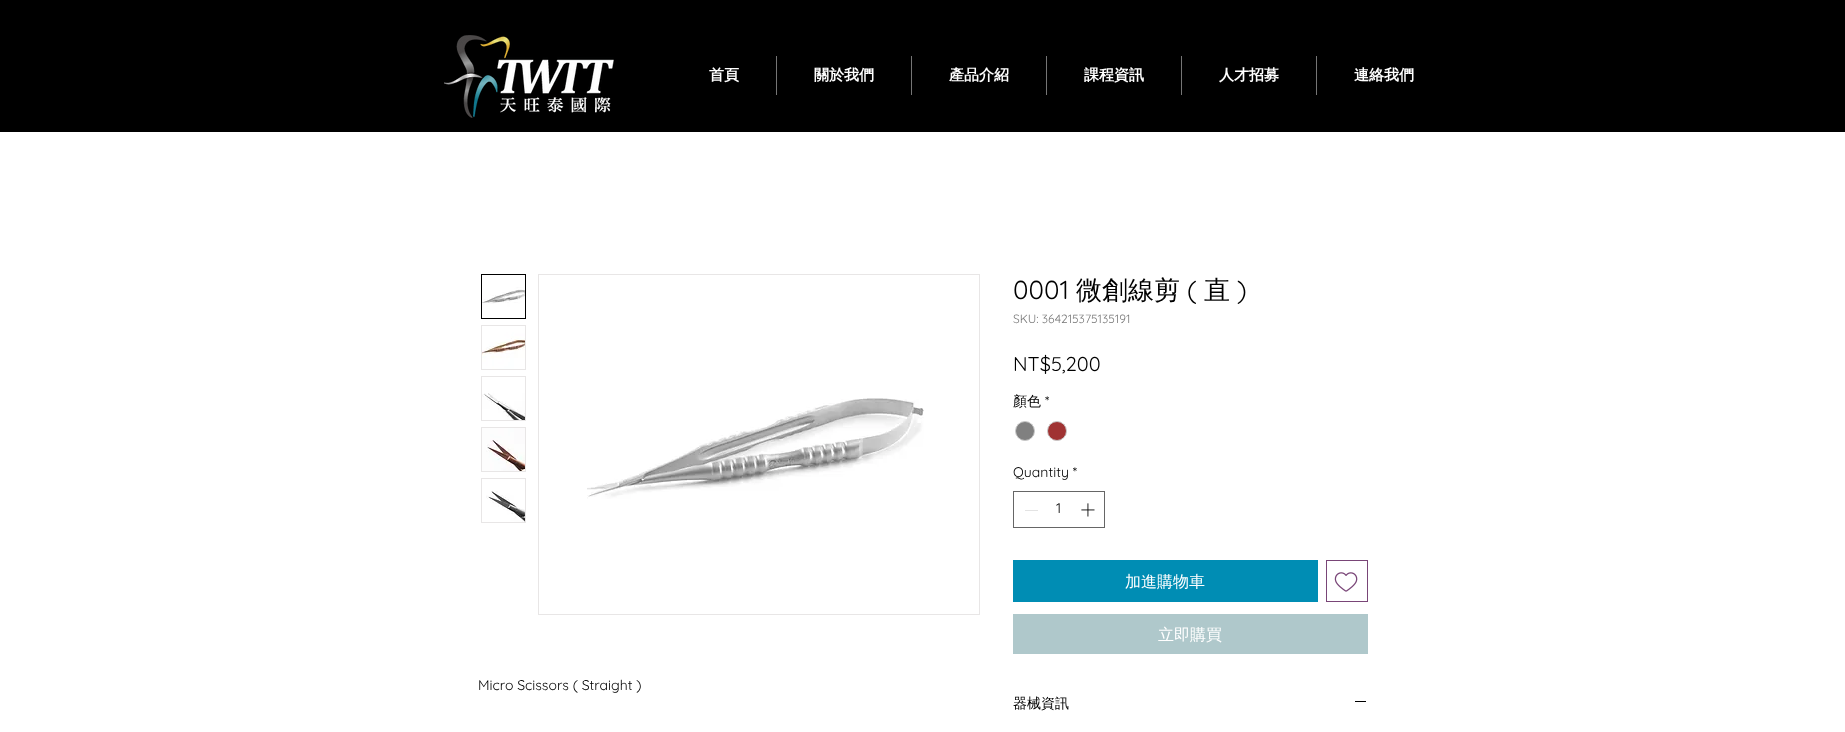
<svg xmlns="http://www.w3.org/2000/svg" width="1845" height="732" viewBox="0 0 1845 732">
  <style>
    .t1 { font: bold 15px WenQuanYi Zen Hei; fill: #fff; }
    .t2 { font: 14px Quicksand; fill: #000; }
    .t3 { font: 26px Quicksand; fill: #000; }
    .t4 { font: 500 26px WenQuanYi Zen Hei; fill: #000; }
    .t5 { font: 12px Quicksand; fill: #757575; }
    .t6 { font: 20px Quicksand; fill: #000; }
    .t7 { font: 500 14px WenQuanYi Zen Hei; fill: #000; }
    .t8 { font: 500 16px WenQuanYi Zen Hei; fill: #fff; }
  </style>
  <rect width="100%" height="100%" fill="#fff"/>
  <rect x="0" y="0" width="1845" height="132" fill="#000"/>
  <image x="444" y="35" width="170" height="83" href="images/1.png"/>
  <text x="709" y="80" class="t1">首頁</text>
  <rect x="776" y="56" width="1" height="39" fill="#757575"/>
  <text x="814" y="80" class="t1">關於我們</text>
  <rect x="911" y="56" width="1" height="39" fill="#757575"/>
  <text x="949" y="80" class="t1">產品介紹</text>
  <rect x="1046" y="56" width="1" height="39" fill="#757575"/>
  <text x="1084" y="80" class="t1">課程資訊</text>
  <rect x="1181" y="56" width="1" height="39" fill="#757575"/>
  <text x="1219" y="80" class="t1">人才招募</text>
  <rect x="1316" y="56" width="1" height="39" fill="#757575"/>
  <text x="1354" y="80" class="t1">連絡我們</text>
  <rect x="481.5" y="274.5" width="44" height="44" fill="none" stroke="#000"/>
  <image x="482" y="275" width="43" height="43" href="images/2.png"/>
  <rect x="481" y="325" width="45" height="45" fill="#e8e6e6"/>
  <image x="482" y="326" width="43" height="43" href="images/3.png"/>
  <rect x="481" y="376" width="45" height="45" fill="#e8e6e6"/>
  <image x="482" y="377" width="43" height="43" href="images/4.png"/>
  <rect x="481" y="427" width="45" height="45" fill="#e8e6e6"/>
  <image x="482" y="428" width="43" height="43" href="images/5.png"/>
  <rect x="481" y="478" width="45" height="45" fill="#e8e6e6"/>
  <image x="482" y="479" width="43" height="43" href="images/6.png"/>
  <rect x="538.5" y="274.5" width="441" height="340" fill="none" stroke="#e8e6e6"/>
  <image x="587" y="398" width="337" height="101" href="images/7.png"/>
  <text x="478" y="690" class="t2">Micro Scissors ( Straight )</text>
  <text x="1013" y="299" class="t3">0001</text>
  <text x="1076" y="299" class="t4">微創線剪</text>
  <text x="1187" y="299" class="t3">(</text>
  <text x="1204" y="299" class="t4">直</text>
  <text x="1237" y="299" class="t3">)</text>
  <text x="1013" y="323" class="t5">SKU: 364215375135191</text>
  <text x="1013" y="371" class="t6">NT$5,200</text>
  <text x="1013" y="406" class="t7">顏色</text>
  <text x="1045" y="406" class="t2">*</text>
  <circle cx="1025" cy="431" r="9.5" fill="#808080" stroke="#c9c9c9"/>
  <circle cx="1057" cy="431" r="9.5" fill="#a03333" stroke="#c9c9c9"/>
  <text x="1013" y="477" class="t2">Quantity *</text>
  <rect x="1013.5" y="491.5" width="91" height="36" fill="none" stroke="#666"/>
  <rect x="1025" y="510" width="13" height="1" fill="#e3e3e3"/>
  <text x="1056" y="513" class="t2">1</text>
  <image x="1081" y="503" width="14" height="14" href="images/8.png"/>
  <rect x="1013" y="560" width="305" height="42" fill="#008db4"/>
  <text x="1125" y="587" class="t8">加進購物車</text>
  <rect x="1326.5" y="560.5" width="41" height="41" fill="none" stroke="#794577"/>
  <image x="1334" y="572" width="24" height="20" href="images/9.png"/>
  <rect x="1013" y="614" width="355" height="40" fill="#afc8cb"/>
  <text x="1158" y="640" class="t8">立即購買</text>
  <text x="1013" y="708" class="t7">器械資訊</text>
  <rect x="1355" y="701" width="11" height="1" fill="#000"/>
</svg>
